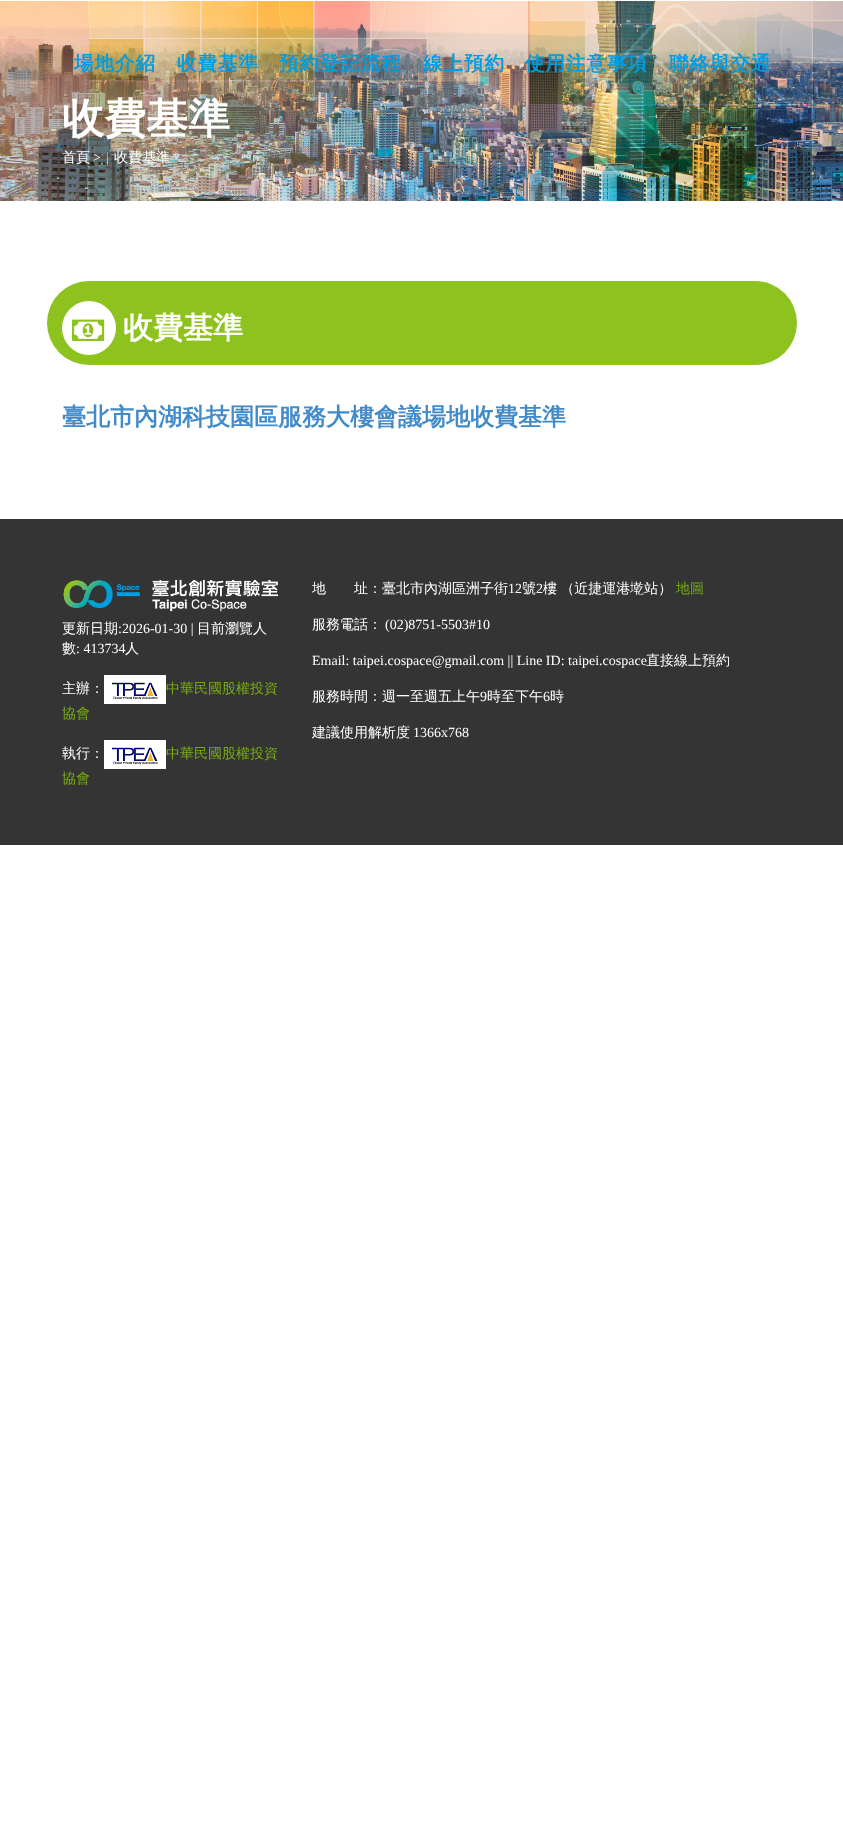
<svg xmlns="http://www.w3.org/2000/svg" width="843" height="1837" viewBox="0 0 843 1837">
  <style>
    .t1 { font: bold 19.5px WenQuanYi Zen Hei; letter-spacing: 1px; fill: #009de1; }
    .t2 { font: bold 42px WenQuanYi Zen Hei; fill: #fff; }
    .t3 { font: 500 14px WenQuanYi Zen Hei; fill: #fff; }
    .t4 { font: 14px Liberation Serif; fill: #fff; }
    .t5 { font: 14px Liberation Serif; fill: #ccc; }
    .t6 { font: bold 30px WenQuanYi Zen Hei; fill: #fff; }
    .t7 { font: bold 24px WenQuanYi Zen Hei; fill: #428bca; }
    .t8 { font: 500 14px WenQuanYi Zen Hei; fill: #77ab16; }
  </style>
  <rect width="100%" height="100%" fill="#fff"/>
  <image x="0" y="1" width="843" height="200" href="images/1.png"/>
  <text x="74" y="70" class="t1">場地介紹</text>
  <text x="177" y="70" class="t1">收費基準</text>
  <text x="279" y="70" class="t1">預約登記流程</text>
  <text x="423" y="70" class="t1">線上預約</text>
  <text x="525" y="70" class="t1">使用注意事項</text>
  <text x="669" y="70" class="t1">聯絡與交通</text>
  <text x="62" y="133" class="t2">收費基準</text>
  <text x="62" y="162" class="t3">首頁</text>
  <text x="93" y="162" class="t4">&gt;</text>
  <text x="106" y="162" class="t5">|</text>
  <text x="114" y="162" class="t3">收費基準</text>
  <rect x="47" y="281" width="750" height="84" rx="42" fill="#8ec31f"/>
  <circle cx="89" cy="328" r="27" fill="#fff"/>
  <image x="72" y="319" width="33" height="22" href="images/2.png"/>
  <text x="123" y="338" class="t6">收費基準</text>
  <text x="62" y="425" class="t7">臺北市內湖科技園區服務大樓會議場地收費基準</text>
  <rect x="0" y="519" width="843" height="326" fill="#343434"/>
  <image x="63" y="579" width="215" height="33" href="images/3.png"/>
  <text x="62" y="633" class="t3">更新日期</text>
  <text x="118" y="633" class="t4">:2026-01-30 |</text>
  <text x="197" y="633" class="t3">目前瀏覽人</text>
  <text x="62" y="653" class="t3">數</text>
  <text x="76" y="653" class="t4">: 413734</text>
  <text x="125" y="653" class="t3">人</text>
  <text x="62" y="693" class="t3">主辦：</text>
  <image x="104" y="675" width="62" height="29" href="images/4.png"/>
  <text x="166" y="693" class="t8">中華民國股權投資</text>
  <text x="62" y="718" class="t8">協會</text>
  <text x="62" y="758" class="t3">執行：</text>
  <image x="104" y="740" width="62" height="29" href="images/4.png"/>
  <text x="166" y="758" class="t8">中華民國股權投資</text>
  <text x="62" y="783" class="t8">協會</text>
  <text x="312" y="593" class="t3">地　　址：臺北市內湖區洲子街</text>
  <text x="508" y="593" class="t4">12</text>
  <text x="522" y="593" class="t3">號</text>
  <text x="536" y="593" class="t4">2</text>
  <text x="543" y="593" word-spacing="-1" class="t3">樓 （近捷運港墘站）</text>
  <text x="676" y="593" class="t8">地圖</text>
  <text x="312" y="629" class="t3">服務電話：</text>
  <text x="385" y="629" class="t4">(02)8751-5503#10</text>
  <text x="312" y="665" class="t4">Email: taipei.cospace@gmail.com || Line ID: taipei.cospace</text>
  <text x="646" y="665" class="t3">直接線上預約</text>
  <text x="312" y="701" class="t3">服務時間：週一至週五上午</text>
  <text x="480" y="701" class="t4">9</text>
  <text x="487" y="701" class="t3">時至下午</text>
  <text x="543" y="701" class="t4">6</text>
  <text x="550" y="701" class="t3">時</text>
  <text x="312" y="737" class="t3">建議使用解析度</text>
  <text x="413" y="737" class="t4">1366x768</text>
</svg>
